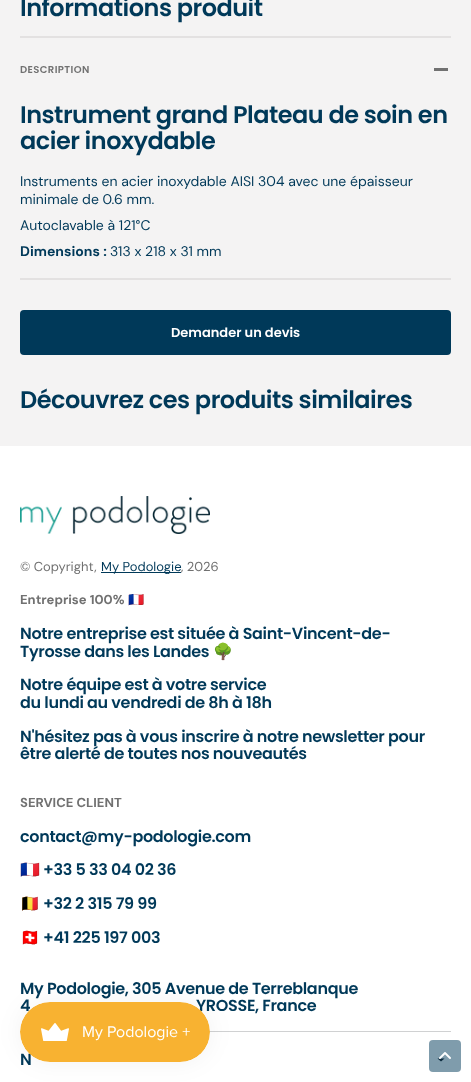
<svg xmlns="http://www.w3.org/2000/svg" width="471" height="1082" viewBox="0 0 471 1082">
  <style>
    .t1 { font: 600 24px Poppins; letter-spacing: -0.5px; fill: #003959; }
    .t2 { font: 600 10px Poppins; letter-spacing: 0.4px; fill: #717171; }
    .t3 { font: 14px DM Sans; fill: #003959; }
    .t4 { font: bold 14px DM Sans; fill: #003959; }
    .t5 { font: 600 13px Poppins; fill: #fff; }
    .t6 { font: 13px 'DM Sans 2'; fill: #717171; }
    .t7 { font: 13px 'DM Sans 2'; fill: #003959; }
    .t8 { font: bold 13px 'DM Sans 2'; fill: #717171; }
    .t9 { font: bold 13px Noto Color Emoji; fill: #717171; }
    .t10 { font: 600 16px Poppins; letter-spacing: -0.32px; fill: #003959; }
    .t11 { font: bold 16px 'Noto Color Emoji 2'; letter-spacing: -0.32px; fill: #003959; }
  </style>
  <rect width="100%" height="100%" fill="#f4f3f3"/>
  <text x="20" y="16" class="t1">Informations produit</text>
  <rect x="20" y="36" width="431" height="2" fill="#e3e1e1"/>
  <rect x="20" y="278" width="431" height="2" fill="#e3e1e1"/>
  <text x="20" y="73" class="t2">DESCRIPTION</text>
  <rect x="434" y="68" width="14" height="3" fill="#717171"/>
  <text x="20" y="123" class="t1">Instrument grand Plateau de soin en</text>
  <text x="20" y="149" class="t1">acier inoxydable</text>
  <text x="20" y="186" class="t3">Instruments en acier inoxydable AISI 304 avec une épaisseur</text>
  <text x="20" y="204" class="t3">minimale de 0.6 mm.</text>
  <text x="20" y="230" class="t3">Autoclavable à 121°C</text>
  <text x="20" y="256" class="t4">Dimensions :</text>
  <text x="110" y="256" class="t3">313 x 218 x 31 mm</text>
  <rect x="20" y="310" width="431" height="45" rx="4" fill="#003959"/>
  <text x="171" y="337" class="t5">Demander un devis</text>
  <text x="20" y="408" class="t1">Découvrez ces produits similaires</text>
  <rect x="0" y="446" width="471" height="636" fill="#fff"/>
  <image x="20" y="496" width="190" height="38" href="images/1.png"/>
  <text x="20" y="571" class="t6">© Copyright,</text>
  <rect x="101" y="572" width="80" height="1" fill="#003959"/>
  <text x="101" y="571" class="t7">My Podologie</text>
  <text x="181" y="571" class="t6">, 2026</text>
  <text x="20" y="604" class="t8">Entreprise 100%</text>
  <text x="128" y="604" class="t9">🇫🇷</text>
  <text x="20" y="639" class="t10">Notre entreprise est située à Saint-Vincent-de-</text>
  <text x="20" y="657" class="t10">Tyrosse dans les Landes</text>
  <text x="213" y="657" class="t11">🌳</text>
  <text x="20" y="690" class="t10">Notre équipe est à votre service</text>
  <text x="20" y="708" class="t10">du lundi au vendredi de 8h à 18h</text>
  <text x="20" y="742" class="t10">N'hésitez pas à vous inscrire à notre newsletter pour</text>
  <text x="20" y="759" class="t10">être alerté de toutes nos nouveautés</text>
  <text x="20" y="807" class="t8">SERVICE CLIENT</text>
  <text x="20" y="842" class="t10">contact@my-podologie.com</text>
  <text x="20" y="875" class="t11">🇫🇷</text>
  <text x="43" y="875" class="t10">+33 5 33 04 02 36</text>
  <text x="20" y="909" class="t11">🇧🇪</text>
  <text x="43" y="909" class="t10">+32 2 315 79 99</text>
  <text x="20" y="943" class="t11">🇨🇭</text>
  <text x="43" y="943" class="t10">+41 225 197 003</text>
  <text x="20" y="994" class="t10">My Podologie, 305 Avenue de Terreblanque</text>
  <text x="20" y="1011" class="t10">4</text>
  <text x="196" y="1011" class="t10">YROSSE, France</text>
  <rect x="20" y="1031" width="431" height="1" fill="#d0d1d2"/>
  <text x="20" y="1065" class="t10">N</text>
  <path d="M441 1061.5L437.5 1058.5H444.5Z" fill="#141920"/>
  <rect x="20" y="1002" width="190" height="60" rx="30" fill="#0000000d" filter="blur(12.5px)"/>
  <image x="20" y="1002" width="190" height="60" href="images/2.png"/>
  <rect x="429" y="1040" width="32" height="32" rx="4" fill="#00395980"/>
  <image x="439" y="1052" width="12" height="7" href="images/3.png"/>
</svg>
